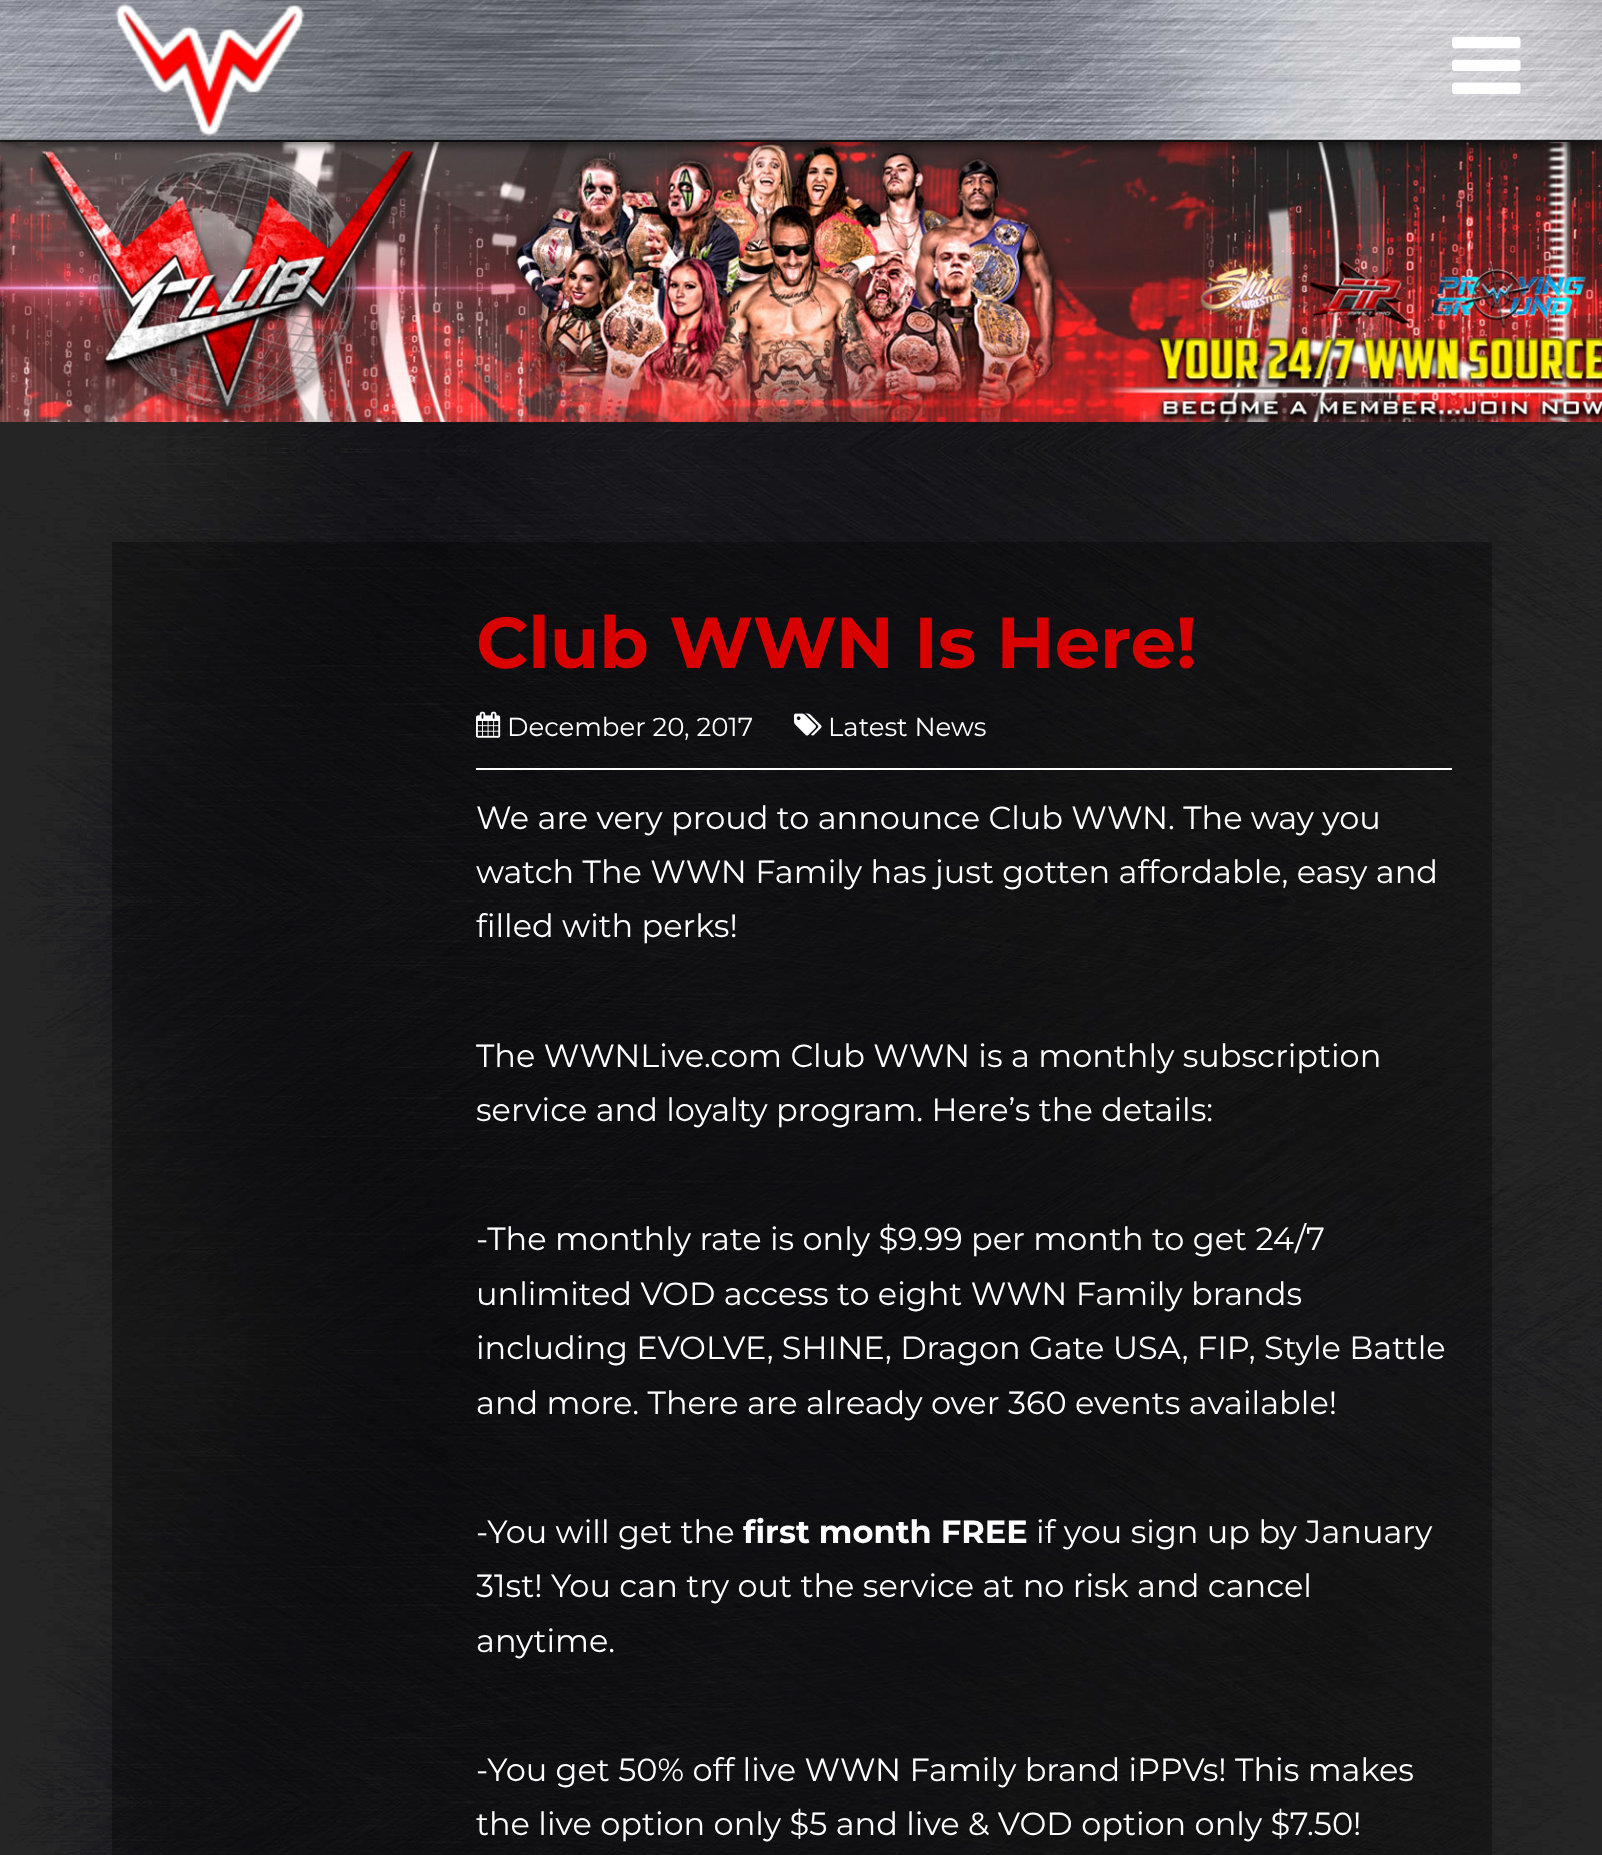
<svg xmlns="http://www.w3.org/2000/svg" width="1602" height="1855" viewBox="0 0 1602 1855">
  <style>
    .t1 { font: bold 72px Montserrat; fill: #d90000; }
    .t2 { font: 26px Montserrat; fill: #fff; }
    .t3 { font: 32px Montserrat; fill: #fff; }
    .t4 { font: bold 32px Montserrat; fill: #fff; }
  </style>
  <rect width="100%" height="100%" fill="#fff"/>
  <image x="0" y="139" width="1602" height="1716" href="images/1.png"/>
  <image x="0" y="142" width="1602" height="280" href="images/5.png"/>
  <rect x="0" y="6" width="1602" height="140" fill="#00000080" filter="blur(5px)"/>
  <image x="0" y="0" width="1602" height="140" href="images/2.png"/>
  <image x="115" y="3" width="190" height="134" href="images/3.png"/>
  <image x="1452" y="36" width="69" height="58" href="images/4.png"/>
  <rect x="112" y="542" width="1380" height="1313" fill="#0000004d"/>
  <text x="476" y="668" class="t1">Club WWN Is Here!</text>
  <rect x="476" y="768" width="976" height="2" fill="#fff"/>
  <image x="476" y="711" width="25" height="27" href="images/6.png"/>
  <text x="507" y="736" class="t2">December 20, 2017</text>
  <image x="794" y="713" width="28" height="23" href="images/7.png"/>
  <text x="828" y="736" class="t2">Latest News</text>
  <text x="476" y="829" class="t3">We are very proud to announce Club WWN. The way you</text>
  <text x="476" y="883" class="t3">watch The WWN Family has just gotten affordable, easy and</text>
  <text x="476" y="937" class="t3">filled with perks!</text>
  <text x="476" y="1067" class="t3">The WWNLive.com Club WWN is a monthly subscription</text>
  <text x="476" y="1121" class="t3">service and loyalty program. Here’s the details:</text>
  <text x="476" y="1250" class="t3">-The monthly rate is only $9.99 per month to get 24/7</text>
  <text x="476" y="1305" class="t3">unlimited VOD access to eight WWN Family brands</text>
  <text x="476" y="1359" class="t3">including EVOLVE, SHINE, Dragon Gate USA, FIP, Style Battle</text>
  <text x="476" y="1414" class="t3">and more. There are already over 360 events available!</text>
  <text x="476" y="1543" class="t3">-You will get the</text>
  <text x="743" y="1543" class="t4">first month FREE</text>
  <text x="1036" y="1543" class="t3">if you sign up by January</text>
  <text x="476" y="1597" class="t3">31st! You can try out the service at no risk and cancel</text>
  <text x="476" y="1652" class="t3">anytime.</text>
  <text x="476" y="1781" class="t3">-You get 50% off live WWN Family brand iPPVs! This makes</text>
  <text x="476" y="1835" class="t3">the live option only $5 and live &amp; VOD option only $7.50!</text>
</svg>
